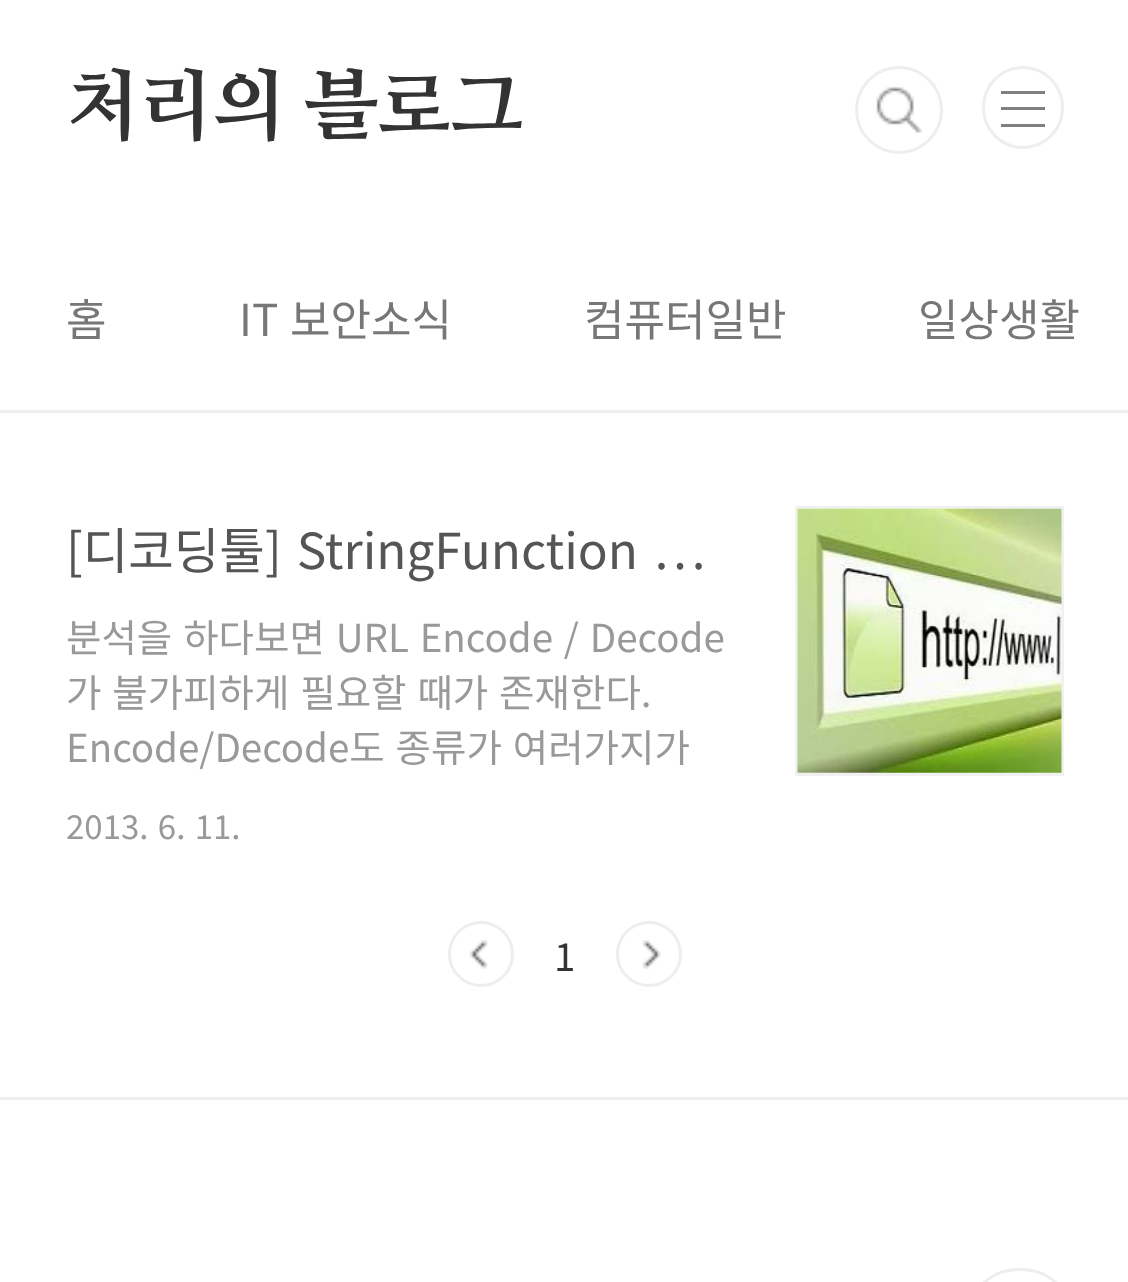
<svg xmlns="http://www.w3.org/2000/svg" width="1128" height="1282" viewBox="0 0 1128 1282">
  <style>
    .t1 { font: 800 77px NanumMyeongjo; letter-spacing: -0.5px; fill: #333; }
    .t2 { font: 44px Noto Sans KR; fill: #777; }
    .t3 { font: 49.5px Noto Sans KR; fill: #555; }
    .t4 { font: 38.5px Noto Sans KR; fill: #999; }
    .t5 { font: 33px Noto Sans KR; fill: #999; }
    .t6 { font: 38.5px Noto Sans KR; fill: #333; }
  </style>
  <rect width="100%" height="100%" fill="#fff"/>
  <rect x="0" y="410" width="1128" height="3" fill="#eee"/>
  <text x="66" y="132" class="t1">처리의 블로그</text>
  <image x="876" y="87" width="46" height="46" href="images/1.png"/>
  <circle cx="899" cy="110" r="42.5" fill="none" stroke="#eee" stroke-width="3"/>
  <rect x="983.5" y="67.5" width="79" height="80" rx="39.5" fill="none" stroke="#eee" stroke-width="3"/>
  <rect x="1001" y="91" width="44" height="3" fill="#7f7f7f"/>
  <rect x="1001" y="107" width="44" height="3" fill="#7f7f7f"/>
  <rect x="1001" y="124" width="44" height="3" fill="#7f7f7f"/>
  <text x="66" y="336" class="t2">홈</text>
  <text x="239" y="336" word-spacing="2" class="t2">IT 보안소식</text>
  <text x="584" y="336" class="t2">컴퓨터일반</text>
  <text x="918" y="336" class="t2">일상생활</text>
  <text x="66" y="569" word-spacing="4" class="t3">[디코딩툴] StringFunction …</text>
  <rect x="796.5" y="507.5" width="266" height="267" fill="none" stroke="#f1f1f1" stroke-width="3"/>
  <image x="797" y="508" width="265" height="265" href="images/2.png"/>
  <text x="66" y="652" word-spacing="2.25" class="t4">분석을 하다보면 URL Encode / Decode</text>
  <text x="66" y="707" word-spacing="2.25" class="t4">가 불가피하게 필요할 때가 존재한다.</text>
  <text x="66" y="762" word-spacing="2.25" class="t4">Encode/Decode도 종류가 여러가지가</text>
  <text x="66" y="839" word-spacing="2" class="t5">2013. 6. 11.</text>
  <image x="469" y="940" width="19" height="29" href="images/3.png"/>
  <circle cx="481" cy="954" r="31.5" fill="none" stroke="#eee" stroke-width="3"/>
  <text x="554" y="971" class="t6">1</text>
  <image x="642" y="940" width="19" height="29" href="images/4.png"/>
  <circle cx="649" cy="954" r="31.5" fill="none" stroke="#eee" stroke-width="3"/>
  <rect x="0" y="1097" width="1128" height="3" fill="#eee"/>
  <rect x="977.5" y="1269.5" width="85" height="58" rx="42.5" fill="none" stroke="#eee" stroke-width="3"/>
</svg>
